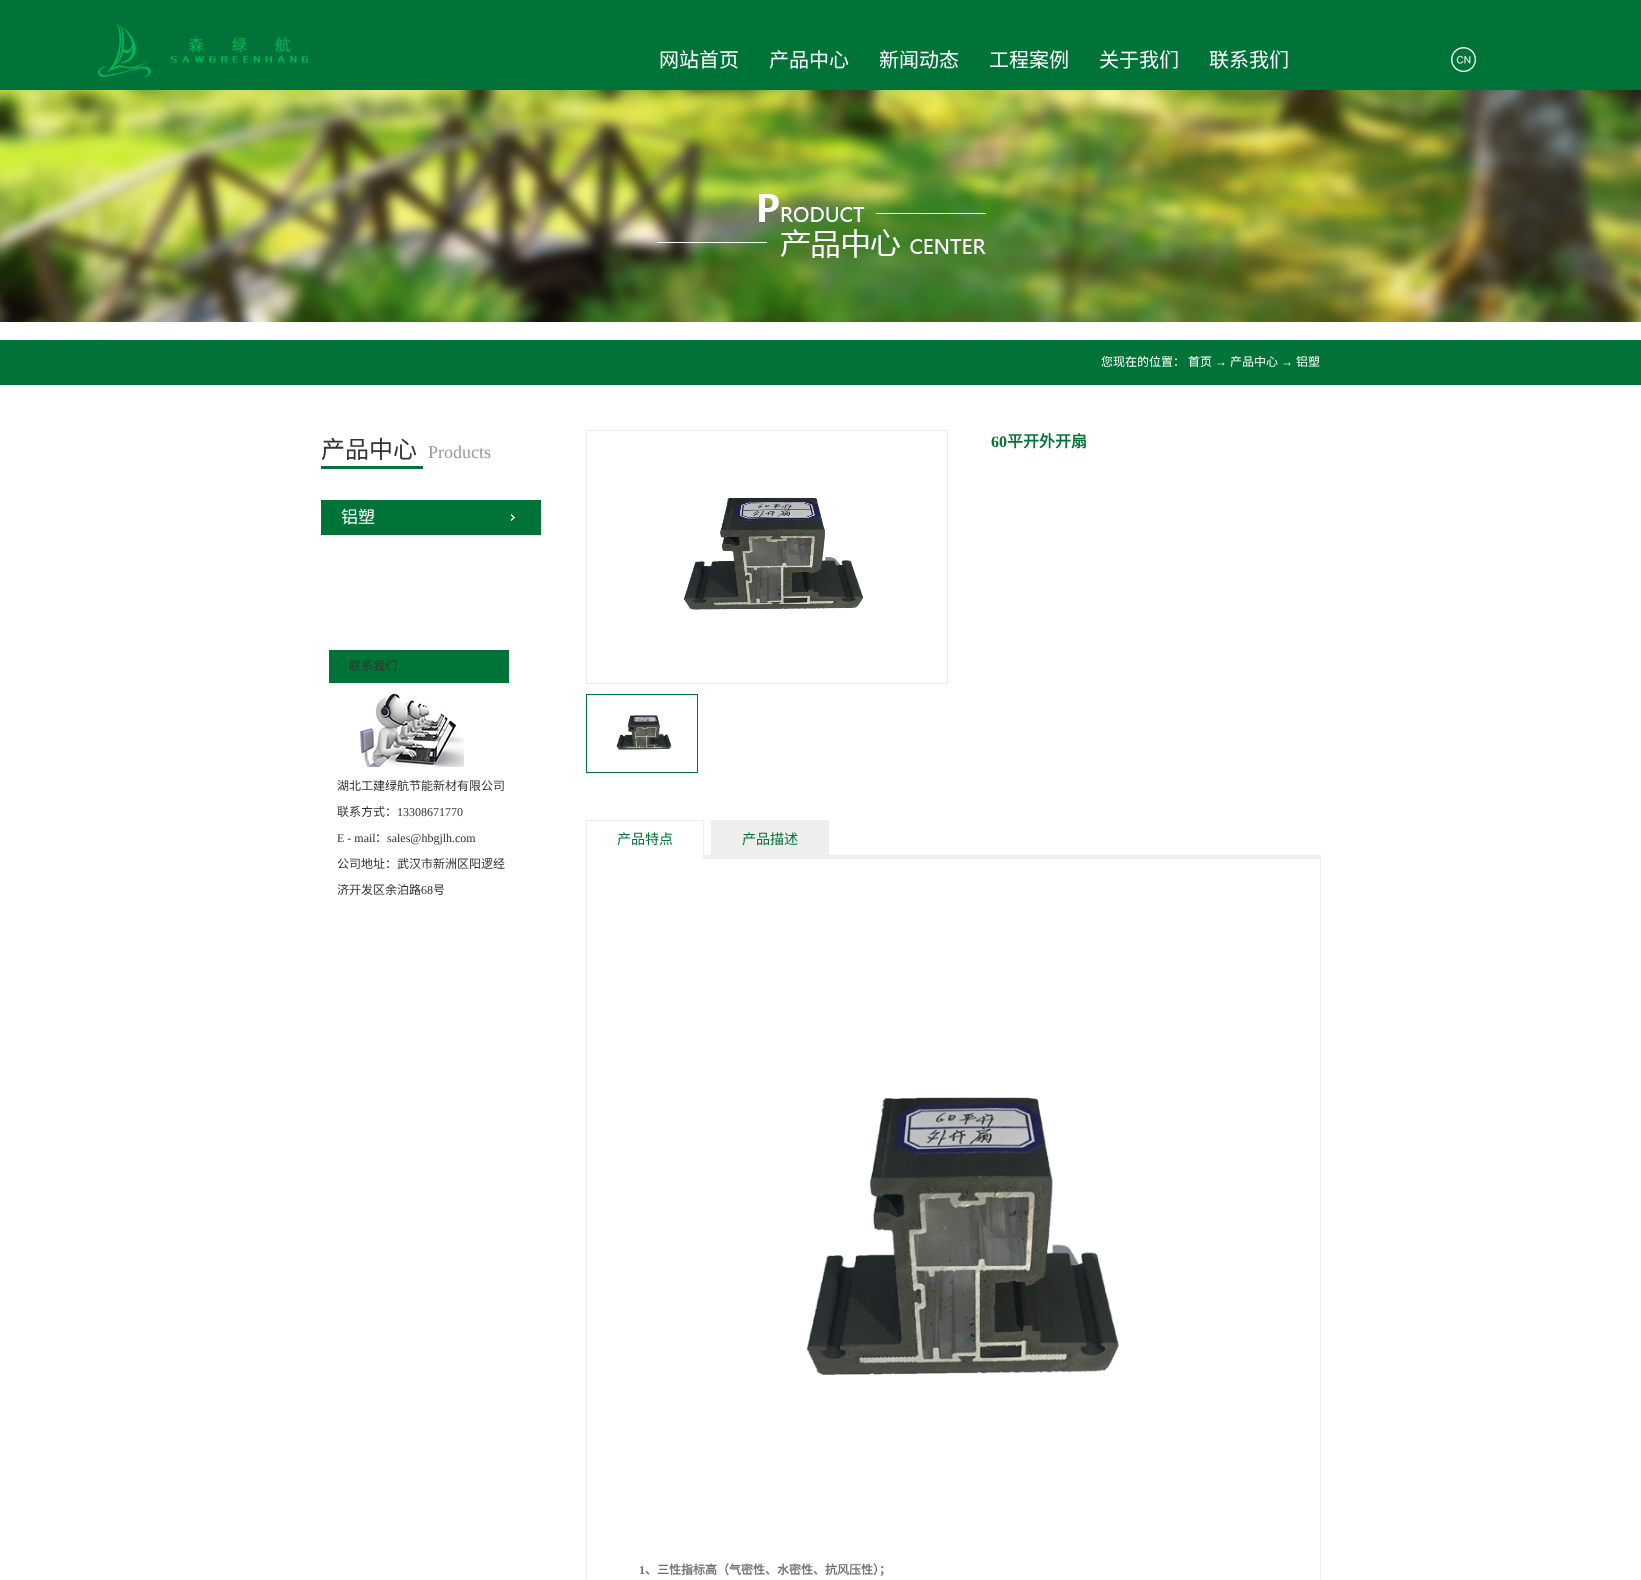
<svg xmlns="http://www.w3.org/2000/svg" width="1641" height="1580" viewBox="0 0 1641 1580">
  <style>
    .t1 { font: 20px Noto Sans CJK SC; fill: #fff; }
    .t2 { font: 24px Noto Sans CJK SC; fill: #333; }
    .t3 { font: 18px Liberation Serif; fill: #999; }
    .t4 { font: 17px Noto Sans CJK SC; fill: #fff; }
    .t5 { font: 12px Noto Sans CJK SC; fill: #333; }
    .t6 { font: 12px Liberation Serif; fill: #333; }
    .t7 { font: 12px Noto Sans CJK SC; fill: #fff; }
    .t8 { font: 12px Liberation Serif; fill: #fff; }
    .t9 { font: bold 16px Liberation Serif; fill: #007338; }
    .t10 { font: bold 16px Noto Sans CJK SC; fill: #007338; }
    .t11 { font: 14px Noto Sans CJK SC; fill: #007338; }
    .t12 { font: bold 12px Liberation Serif; fill: #717070; }
    .t13 { font: bold 12px Noto Sans CJK SC; fill: #717070; }
  </style>
  <rect width="100%" height="100%" fill="#fff"/>
  <rect x="0" y="0" width="1641" height="90" fill="#007338"/>
  <image x="98" y="23" width="210" height="54" href="images/1.png"/>
  <text x="659" y="67" class="t1">网站首页</text>
  <text x="769" y="67" class="t1">产品中心</text>
  <text x="879" y="67" class="t1">新闻动态</text>
  <text x="989" y="67" class="t1">工程案例</text>
  <text x="1099" y="67" class="t1">关于我们</text>
  <text x="1209" y="67" class="t1">联系我们</text>
  <image x="1451" y="47" width="25" height="25" href="images/2.png"/>
  <image x="0" y="90" width="1641" height="232" href="images/3.png"/>
  <text x="321" y="458" class="t2">产品中心</text>
  <rect x="321" y="466" width="102" height="3" fill="#007338"/>
  <text x="428" y="458" class="t3">Products</text>
  <rect x="321" y="500" width="220" height="35" fill="#007338"/>
  <image x="511" y="514" width="4" height="7" href="images/4.png"/>
  <text x="341" y="523" class="t4">铝塑</text>
  <rect x="329" y="650" width="180" height="33" fill="#007338"/>
  <text x="349" y="670" class="t5">联系我们</text>
  <image x="360" y="693" width="104" height="74" href="images/5.png"/>
  <text x="337" y="790" class="t5">湖北工建绿航节能新材有限公司</text>
  <text x="337" y="816" class="t5">联系方式：</text>
  <text x="397" y="816" class="t6">13308671770</text>
  <text x="337" y="842" class="t6">E - mail</text>
  <text x="375" y="842" class="t5">：</text>
  <text x="387" y="842" class="t6">sales@hbgjlh.com</text>
  <text x="337" y="868" class="t5">公司地址：武汉市新洲区阳逻经</text>
  <text x="337" y="894" class="t5">济开发区余泊路</text>
  <text x="421" y="894" class="t6">68</text>
  <text x="433" y="894" class="t5">号</text>
  <rect x="0" y="340" width="1641" height="45" fill="#017338"/>
  <text x="1101" y="366" class="t7">您现在的位置：</text>
  <text x="1188" y="366" class="t7">首页</text>
  <text x="1215" y="366" class="t8">→</text>
  <text x="1230" y="366" class="t7">产品中心</text>
  <text x="1281" y="366" class="t8">→</text>
  <text x="1296" y="366" class="t7">铝塑</text>
  <rect x="586.5" y="430.5" width="361" height="253" fill="none" stroke="#eaeaea"/>
  <image x="683" y="497" width="180" height="113" href="images/6.png"/>
  <rect x="586.5" y="694.5" width="111" height="78" fill="none" stroke="#007338"/>
  <image x="616" y="715" width="56" height="35" href="images/7.png"/>
  <text x="991" y="447" class="t9">60</text>
  <text x="1007" y="447" class="t10">平开外开扇</text>
  <rect x="704" y="855" width="617" height="4" fill="#eee"/>
  <rect x="586" y="820" width="118" height="1" fill="#eee"/>
  <rect x="703" y="820" width="1" height="39" fill="#eee"/>
  <rect x="586" y="820" width="1" height="39" fill="#eee"/>
  <text x="617" y="844" class="t11">产品特点</text>
  <rect x="711" y="820" width="118" height="1" fill="#eee"/>
  <rect x="828" y="820" width="1" height="39" fill="#eee"/>
  <rect x="711" y="820" width="1" height="39" fill="#eee"/>
  <rect x="712" y="821" width="116" height="34" fill="#eee"/>
  <text x="742" y="844" class="t11">产品描述</text>
  <rect x="1320" y="859" width="1" height="721" fill="#eee"/>
  <rect x="586" y="859" width="1" height="721" fill="#eee"/>
  <image x="806" y="1097" width="313" height="278" href="images/8.png"/>
  <text x="639" y="1574" class="t12">1</text>
  <text x="645" y="1574" class="t13">、三性指标高（气密性、水密性、抗风压性）；</text>
</svg>
